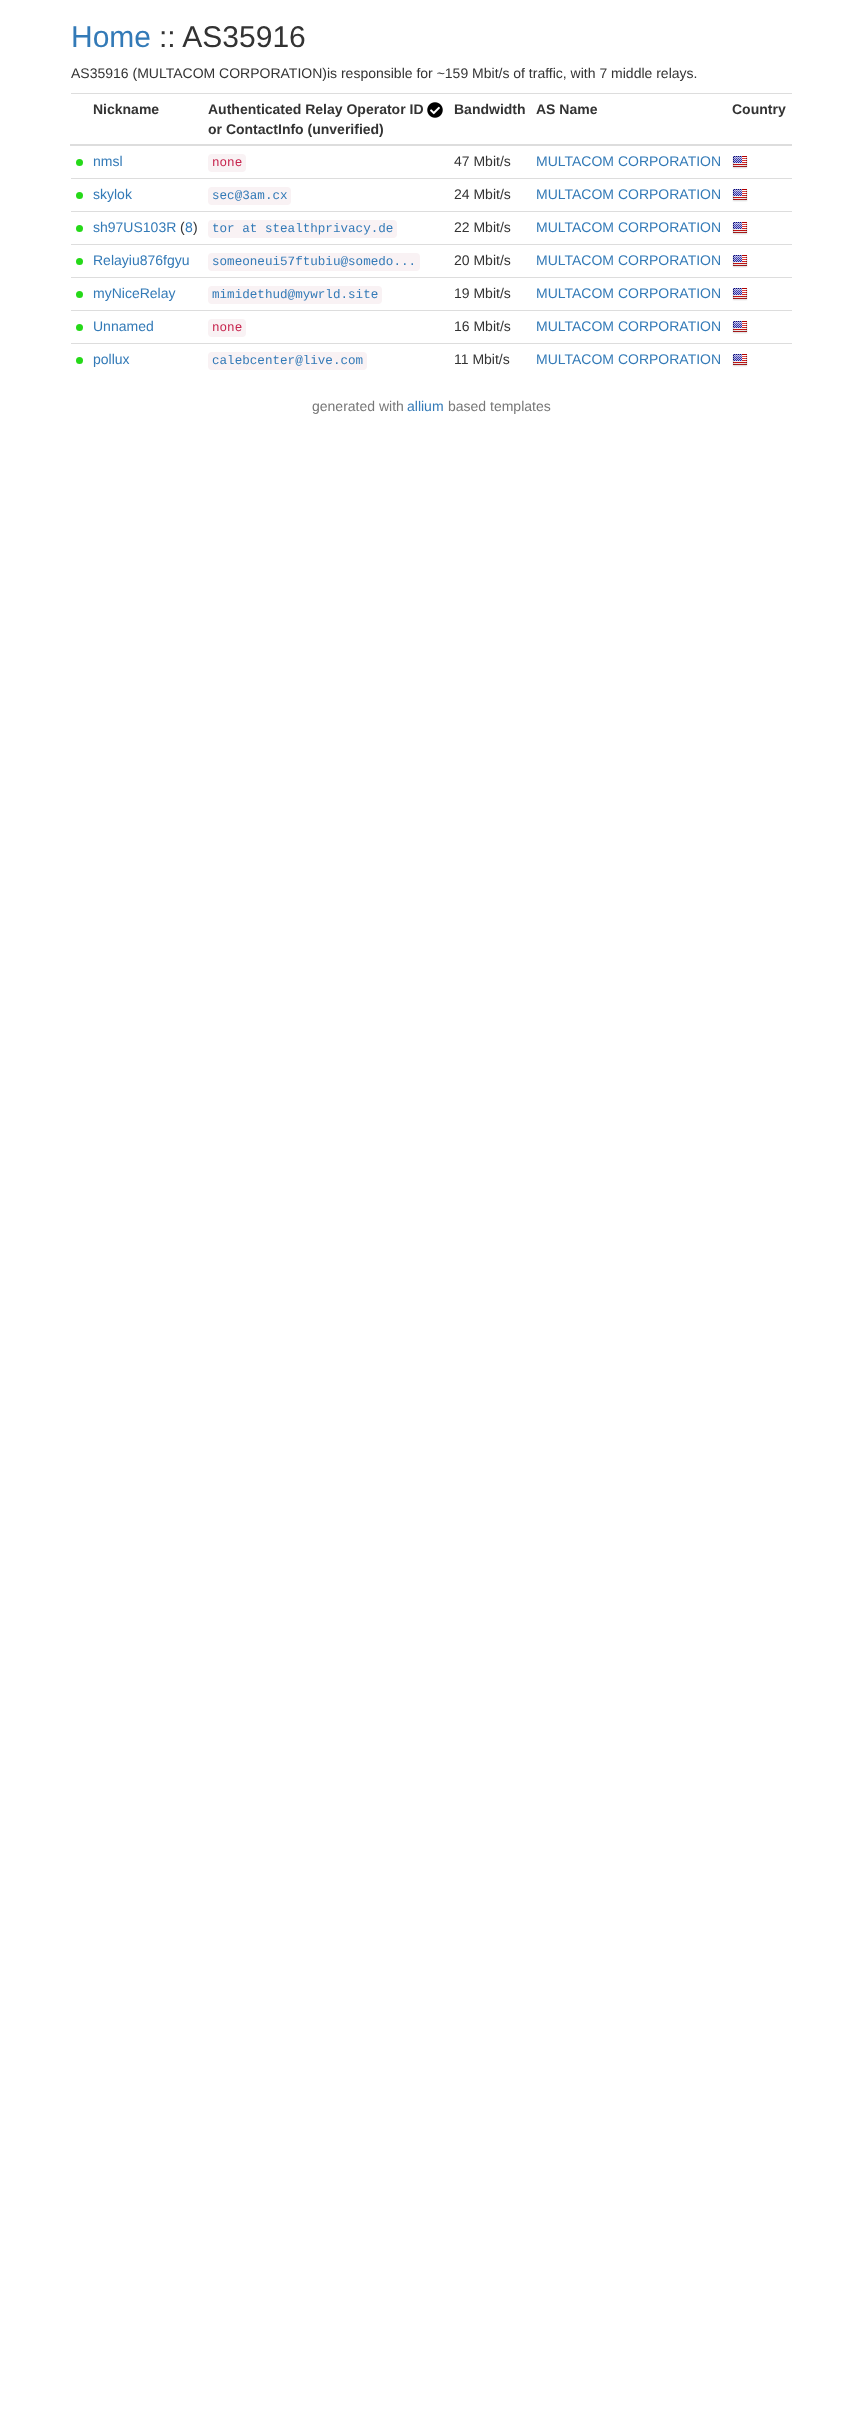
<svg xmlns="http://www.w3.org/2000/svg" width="862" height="2416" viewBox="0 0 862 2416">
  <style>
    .t1 { font: 30px Liberation Sans; fill: #337ab7; }
    .t2 { font: 30px Liberation Sans; fill: #333; }
    .t3 { font: 14px Liberation Sans; fill: #333; }
    .t4 { font: bold 14px Liberation Sans; fill: #333; }
    .t5 { font: 14px Liberation Sans; fill: #337ab7; }
    .t6 { font: 12.6px Liberation Mono; fill: #c7254e; }
    .t7 { font: 12.6px Liberation Mono; fill: #337ab7; }
    .t8 { font: 14px Liberation Sans; fill: #777; }
  </style>
  <rect width="100%" height="100%" fill="#fff"/>
  <text x="71" y="47" class="t1">Home</text>
  <text x="159" y="47" class="t2">:: AS35916</text>
  <text x="71" y="78" class="t3">AS35916 (MULTACOM CORPORATION)is responsible for ~159 Mbit/s of traffic, with 7 middle relays.</text>
  <text x="93" y="114" class="t4">Nickname</text>
  <text x="208" y="114" class="t4">Authenticated Relay Operator ID</text>
  <image x="427" y="102" width="16" height="16" href="images/1.png"/>
  <text x="208" y="134" class="t4">or ContactInfo (unverified)</text>
  <text x="454" y="114" class="t4">Bandwidth</text>
  <text x="536" y="114" class="t4">AS Name</text>
  <rect x="71" y="93" width="721" height="1" fill="#ddd"/>
  <text x="732" y="114" class="t4">Country</text>
  <rect x="70" y="144" width="722" height="2" fill="#ddd"/>
  <circle cx="79.5" cy="162.5" r="3.5" fill="#25d918"/>
  <text x="93" y="166" class="t5">nmsl</text>
  <rect x="208" y="154" width="38" height="18" rx="4" fill="#f9f2f4"/>
  <text x="212" y="166" class="t6">none</text>
  <text x="454" y="166" class="t3">47 Mbit/s</text>
  <text x="536" y="166" class="t5">MULTACOM CORPORATION</text>
  <image x="732" y="156" width="16" height="13" href="images/2.png"/>
  <rect x="71" y="178" width="721" height="1" fill="#ddd"/>
  <image x="732" y="189" width="16" height="13" href="images/2.png"/>
  <circle cx="79.5" cy="195.5" r="3.5" fill="#25d918"/>
  <text x="93" y="199" class="t5">skylok</text>
  <rect x="208" y="187" width="83" height="18" rx="4" fill="#f9f2f4"/>
  <text x="212" y="199" class="t7">sec@3am.cx</text>
  <text x="454" y="199" class="t3">24 Mbit/s</text>
  <text x="536" y="199" class="t5">MULTACOM CORPORATION</text>
  <rect x="71" y="211" width="721" height="1" fill="#ddd"/>
  <image x="732" y="222" width="16" height="13" href="images/2.png"/>
  <circle cx="79.5" cy="228.5" r="3.5" fill="#25d918"/>
  <text x="93" y="232" class="t5">sh97US103R</text>
  <text x="180" y="232" class="t3">(</text>
  <text x="185" y="232" class="t5">8</text>
  <text x="193" y="232" class="t3">)</text>
  <rect x="208" y="220" width="189" height="18" rx="4" fill="#f9f2f4"/>
  <text x="212" y="232" class="t7">tor at stealthprivacy.de</text>
  <text x="454" y="232" class="t3">22 Mbit/s</text>
  <text x="536" y="232" class="t5">MULTACOM CORPORATION</text>
  <rect x="71" y="244" width="721" height="1" fill="#ddd"/>
  <image x="732" y="255" width="16" height="13" href="images/2.png"/>
  <circle cx="79.5" cy="261.5" r="3.5" fill="#25d918"/>
  <text x="93" y="265" class="t5">Relayiu876fgyu</text>
  <rect x="208" y="253" width="212" height="18" rx="4" fill="#f9f2f4"/>
  <text x="212" y="265" class="t7">someoneui57ftubiu@somedo...</text>
  <text x="454" y="265" class="t3">20 Mbit/s</text>
  <text x="536" y="265" class="t5">MULTACOM CORPORATION</text>
  <rect x="71" y="277" width="721" height="1" fill="#ddd"/>
  <image x="732" y="288" width="16" height="13" href="images/2.png"/>
  <circle cx="79.5" cy="294.5" r="3.5" fill="#25d918"/>
  <text x="93" y="298" class="t5">myNiceRelay</text>
  <rect x="208" y="286" width="174" height="18" rx="4" fill="#f9f2f4"/>
  <text x="212" y="298" class="t7">mimidethud@mywrld.site</text>
  <text x="454" y="298" class="t3">19 Mbit/s</text>
  <text x="536" y="298" class="t5">MULTACOM CORPORATION</text>
  <rect x="71" y="310" width="721" height="1" fill="#ddd"/>
  <image x="732" y="321" width="16" height="13" href="images/2.png"/>
  <circle cx="79.5" cy="327.5" r="3.5" fill="#25d918"/>
  <text x="93" y="331" class="t5">Unnamed</text>
  <rect x="208" y="319" width="38" height="18" rx="4" fill="#f9f2f4"/>
  <text x="212" y="331" class="t6">none</text>
  <text x="454" y="331" class="t3">16 Mbit/s</text>
  <text x="536" y="331" class="t5">MULTACOM CORPORATION</text>
  <rect x="71" y="343" width="721" height="1" fill="#ddd"/>
  <image x="732" y="354" width="16" height="13" href="images/2.png"/>
  <circle cx="79.5" cy="360.5" r="3.5" fill="#25d918"/>
  <text x="93" y="364" class="t5">pollux</text>
  <rect x="208" y="352" width="159" height="18" rx="4" fill="#f9f2f4"/>
  <text x="212" y="364" class="t7">calebcenter@live.com</text>
  <text x="454" y="364" class="t3">11 Mbit/s</text>
  <text x="536" y="364" class="t5">MULTACOM CORPORATION</text>
  <text x="312" y="411" class="t8">generated with</text>
  <text x="407" y="411" class="t5">allium</text>
  <text x="448" y="411" class="t8">based templates</text>
</svg>
